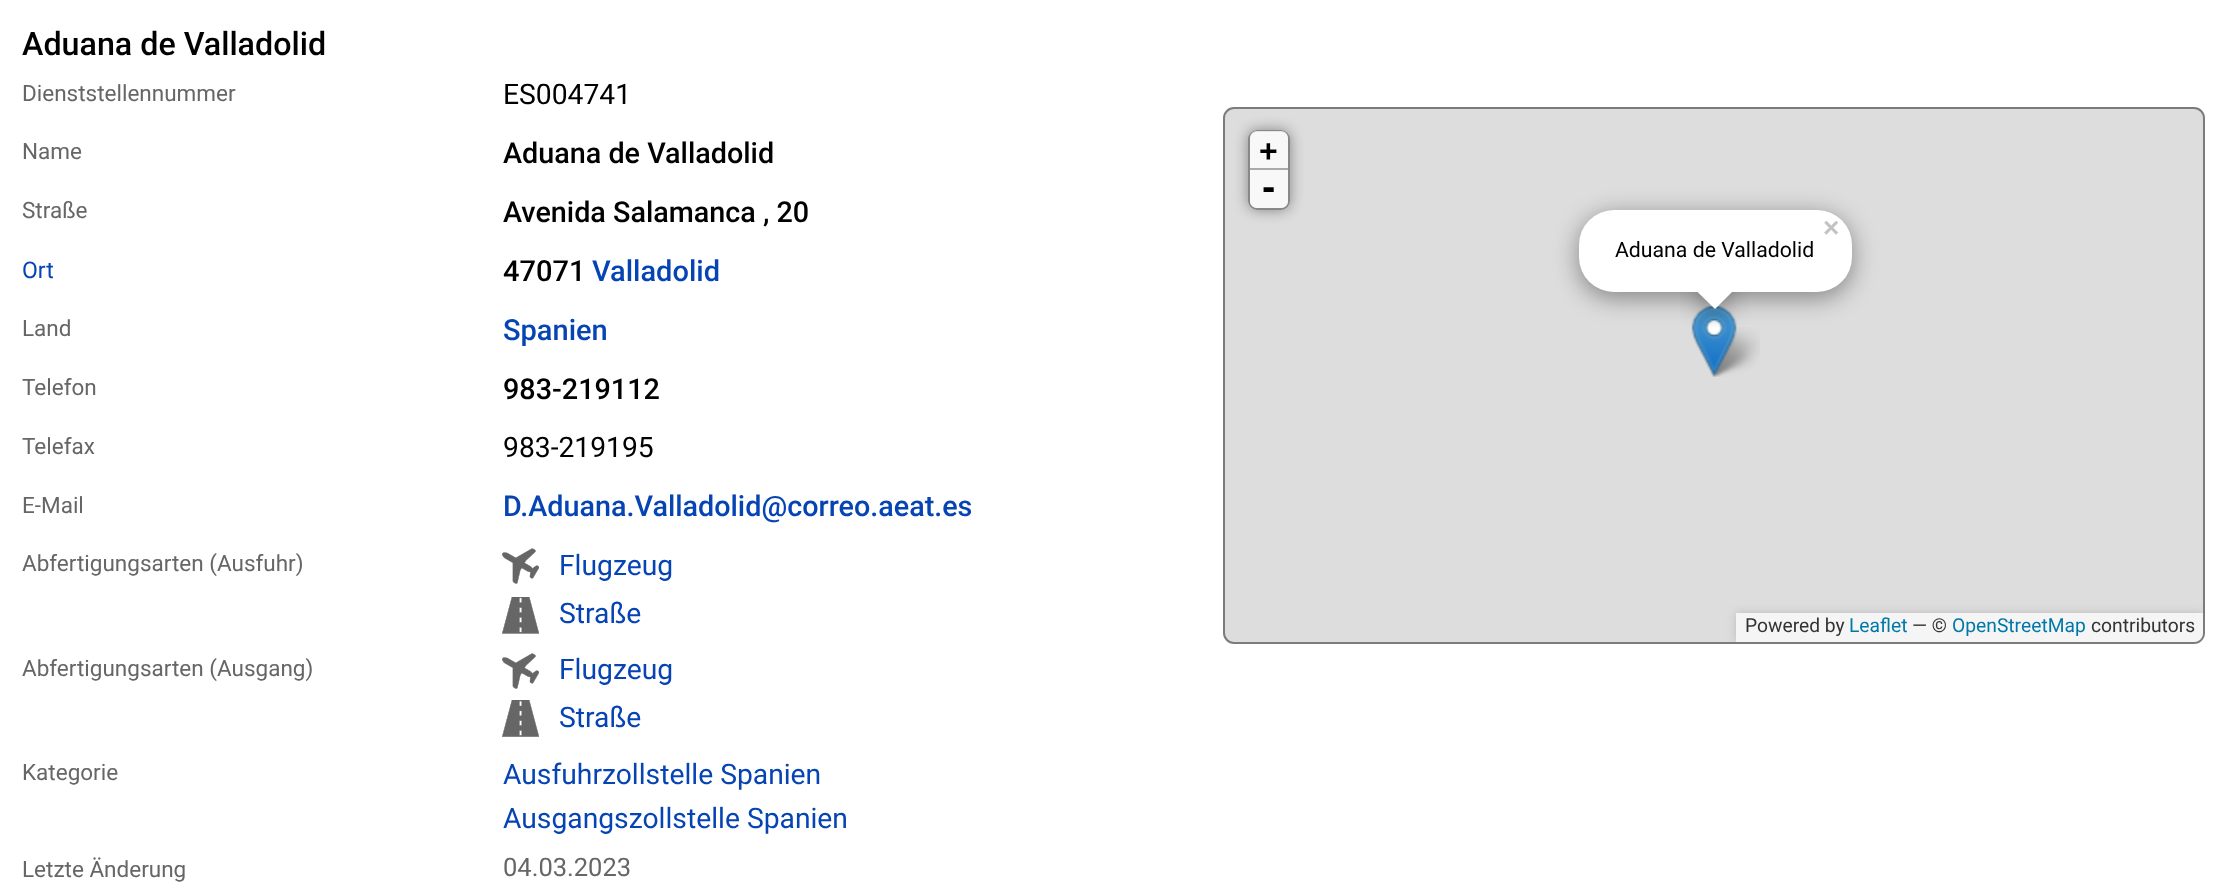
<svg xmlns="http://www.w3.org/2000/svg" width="2227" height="895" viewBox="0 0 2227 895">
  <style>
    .t1 { font: 500 32.25px Roboto; fill: #000; }
    .t2 { font: 22.5px Roboto; fill: #666; }
    .t3 { font: 28.25px Roboto; fill: #000; }
    .t4 { font: 500 28.75px Roboto; fill: #000; }
    .t5 { font: 23px Roboto; fill: #0644b4; }
    .t6 { font: 500 29px Roboto; fill: #000; }
    .t7 { font: 500 29px Roboto; fill: #0644b4; }
    .t8 { font: 500 28.75px Roboto; fill: #0644b4; }
    .t9 { font: 28.25px Roboto; fill: #0644b4; }
    .t10 { font: 25.5px Roboto; fill: #666; }
    .t11 { font: bold 32px Liberation Sans; fill: #000; }
    .t12 { font: bold 40px Liberation Sans; fill: #000; }
    .t13 { font: 19.25px Roboto; fill: #333; }
    .t14 { font: 19.25px Roboto; fill: #0078a8; }
    .t15 { font: bold 28px Liberation Sans; fill: #c3c3c3; }
    .t16 { font: 21.25px Roboto; fill: #000; }
  </style>
  <defs>
    <clipPath id="clip1"><path d="M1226 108H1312V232H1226ZM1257 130H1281C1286 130 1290 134 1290 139V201C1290 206 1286 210 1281 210H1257C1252 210 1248 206 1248 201V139C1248 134 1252 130 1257 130Z" clip-rule="evenodd"/></clipPath>
    <clipPath id="clip2"><rect x="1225" y="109" width="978" height="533" rx="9"/></clipPath>
    <clipPath id="clip3"><path d="M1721 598H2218V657H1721ZM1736 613H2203V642H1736Z" clip-rule="evenodd"/></clipPath>
    <clipPath id="clip4"><rect x="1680" y="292" width="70" height="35"/></clipPath>
    <clipPath id="clip5"><rect x="1680" y="292" width="70" height="35"/></clipPath>
  </defs>
  <rect width="100%" height="100%" fill="#fff"/>
  <text x="22" y="55" class="t1">Aduana de Valladolid</text>
  <text x="22" y="101" class="t2">Dienststellennummer</text>
  <text x="503" y="104" class="t3">ES004741</text>
  <text x="22" y="159" class="t2">Name</text>
  <text x="503" y="163" class="t4">Aduana de Valladolid</text>
  <text x="22" y="218" class="t2">Straße</text>
  <text x="503" y="222" class="t4">Avenida Salamanca , 20</text>
  <text x="22" y="278" class="t5">Ort</text>
  <text x="503" y="281" class="t6">47071</text>
  <text x="592" y="281" class="t7">Valladolid</text>
  <text x="22" y="336" class="t2">Land</text>
  <text x="503" y="340" class="t7">Spanien</text>
  <text x="22" y="395" class="t2">Telefon</text>
  <text x="503" y="399" class="t4">983-219112</text>
  <text x="22" y="454" class="t2">Telefax</text>
  <text x="503" y="457" class="t3">983-219195</text>
  <text x="22" y="513" class="t2">E-Mail</text>
  <text x="503" y="516" class="t8">D.Aduana.Valladolid@correo.aeat.es</text>
  <text x="22" y="571" class="t2">Abfertigungsarten (Ausfuhr)</text>
  <image x="502" y="548" width="37" height="36" href="images/1.png"/>
  <text x="559" y="575" class="t9">Flugzeug</text>
  <image x="502" y="597" width="37" height="37" href="images/2.png"/>
  <text x="559" y="623" class="t9">Straße</text>
  <text x="22" y="676" class="t2">Abfertigungsarten (Ausgang)</text>
  <image x="502" y="653" width="37" height="36" href="images/1.png"/>
  <text x="559" y="679" class="t9">Flugzeug</text>
  <image x="502" y="700" width="37" height="37" href="images/3.png"/>
  <text x="559" y="727" class="t9">Straße</text>
  <text x="22" y="780" class="t2">Kategorie</text>
  <text x="503" y="784" class="t9">Ausfuhrzollstelle Spanien</text>
  <text x="503" y="828" class="t9">Ausgangszollstelle Spanien</text>
  <text x="22" y="877" class="t2">Letzte Änderung</text>
  <text x="503" y="876" class="t10">04.03.2023</text>
  <rect x="1224" y="108" width="980" height="535" rx="10" fill="#ddd" stroke="#7c7c7c" stroke-width="2"/>
  <g clip-path="url(#clip1)">
    <rect x="1248" y="130" width="42" height="80" rx="9" fill="#00000066" filter="blur(7px)"/>
  </g>
  <rect x="1249" y="131" width="40" height="78" rx="8" fill="none" stroke="#888" stroke-width="2"/>
  <path d="M1257 131H1281C1285 131 1288 134 1288 138V170H1250V138C1250 134 1253 131 1257 131Z" fill="#ffffffcc"/>
  <rect x="1250" y="168" width="38" height="2" fill="#aaa"/>
  <text x="1259" y="162" class="t11">+</text>
  <path d="M1250 170H1288V201C1288 205 1285 208 1281 208H1257C1253 208 1250 205 1250 201Z" fill="#ffffffcc"/>
  <text x="1262" y="200" class="t12">-</text>
  <g clip-path="url(#clip2)">
    <g clip-path="url(#clip3)">
      <rect x="1736" y="613" width="467" height="29" fill="#bbb" filter="blur(4.5px)"/>
    </g>
  </g>
  <path d="M1736 613H2203V633C2203 638 2199 642 2194 642H1736Z" fill="#ffffffb3"/>
  <text x="1745" y="632" class="t13">Powered by</text>
  <text x="1849" y="632" class="t14">Leaflet</text>
  <text x="1912" y="632" class="t13">— ©</text>
  <text x="1952" y="632" class="t14">OpenStreetMap</text>
  <text x="2091" y="632" class="t13">contributors</text>
  <image x="1708" y="327" width="52" height="50" href="images/5.png"/>
  <image x="1691" y="305" width="46" height="72" href="images/4.png"/>
  <rect x="1579" y="215" width="273" height="83" rx="35" fill="#00000066" filter="blur(12px)"/>
  <rect x="1579" y="210" width="273" height="82" rx="35" fill="#fff"/>
  <text x="1823" y="237" class="t15">×</text>
  <text x="1615" y="257" class="t16">Aduana de Valladolid</text>
  <g clip-path="url(#clip4)">
    <rect x="1701" y="284" width="26" height="26" fill="#00000066" filter="blur(12.5px)"/>
  </g>
  <g clip-path="url(#clip5)">
    <path d="M1715 272L1733.5 290.5L1715 309L1696 290.5Z" fill="#fff"/>
  </g>
</svg>
